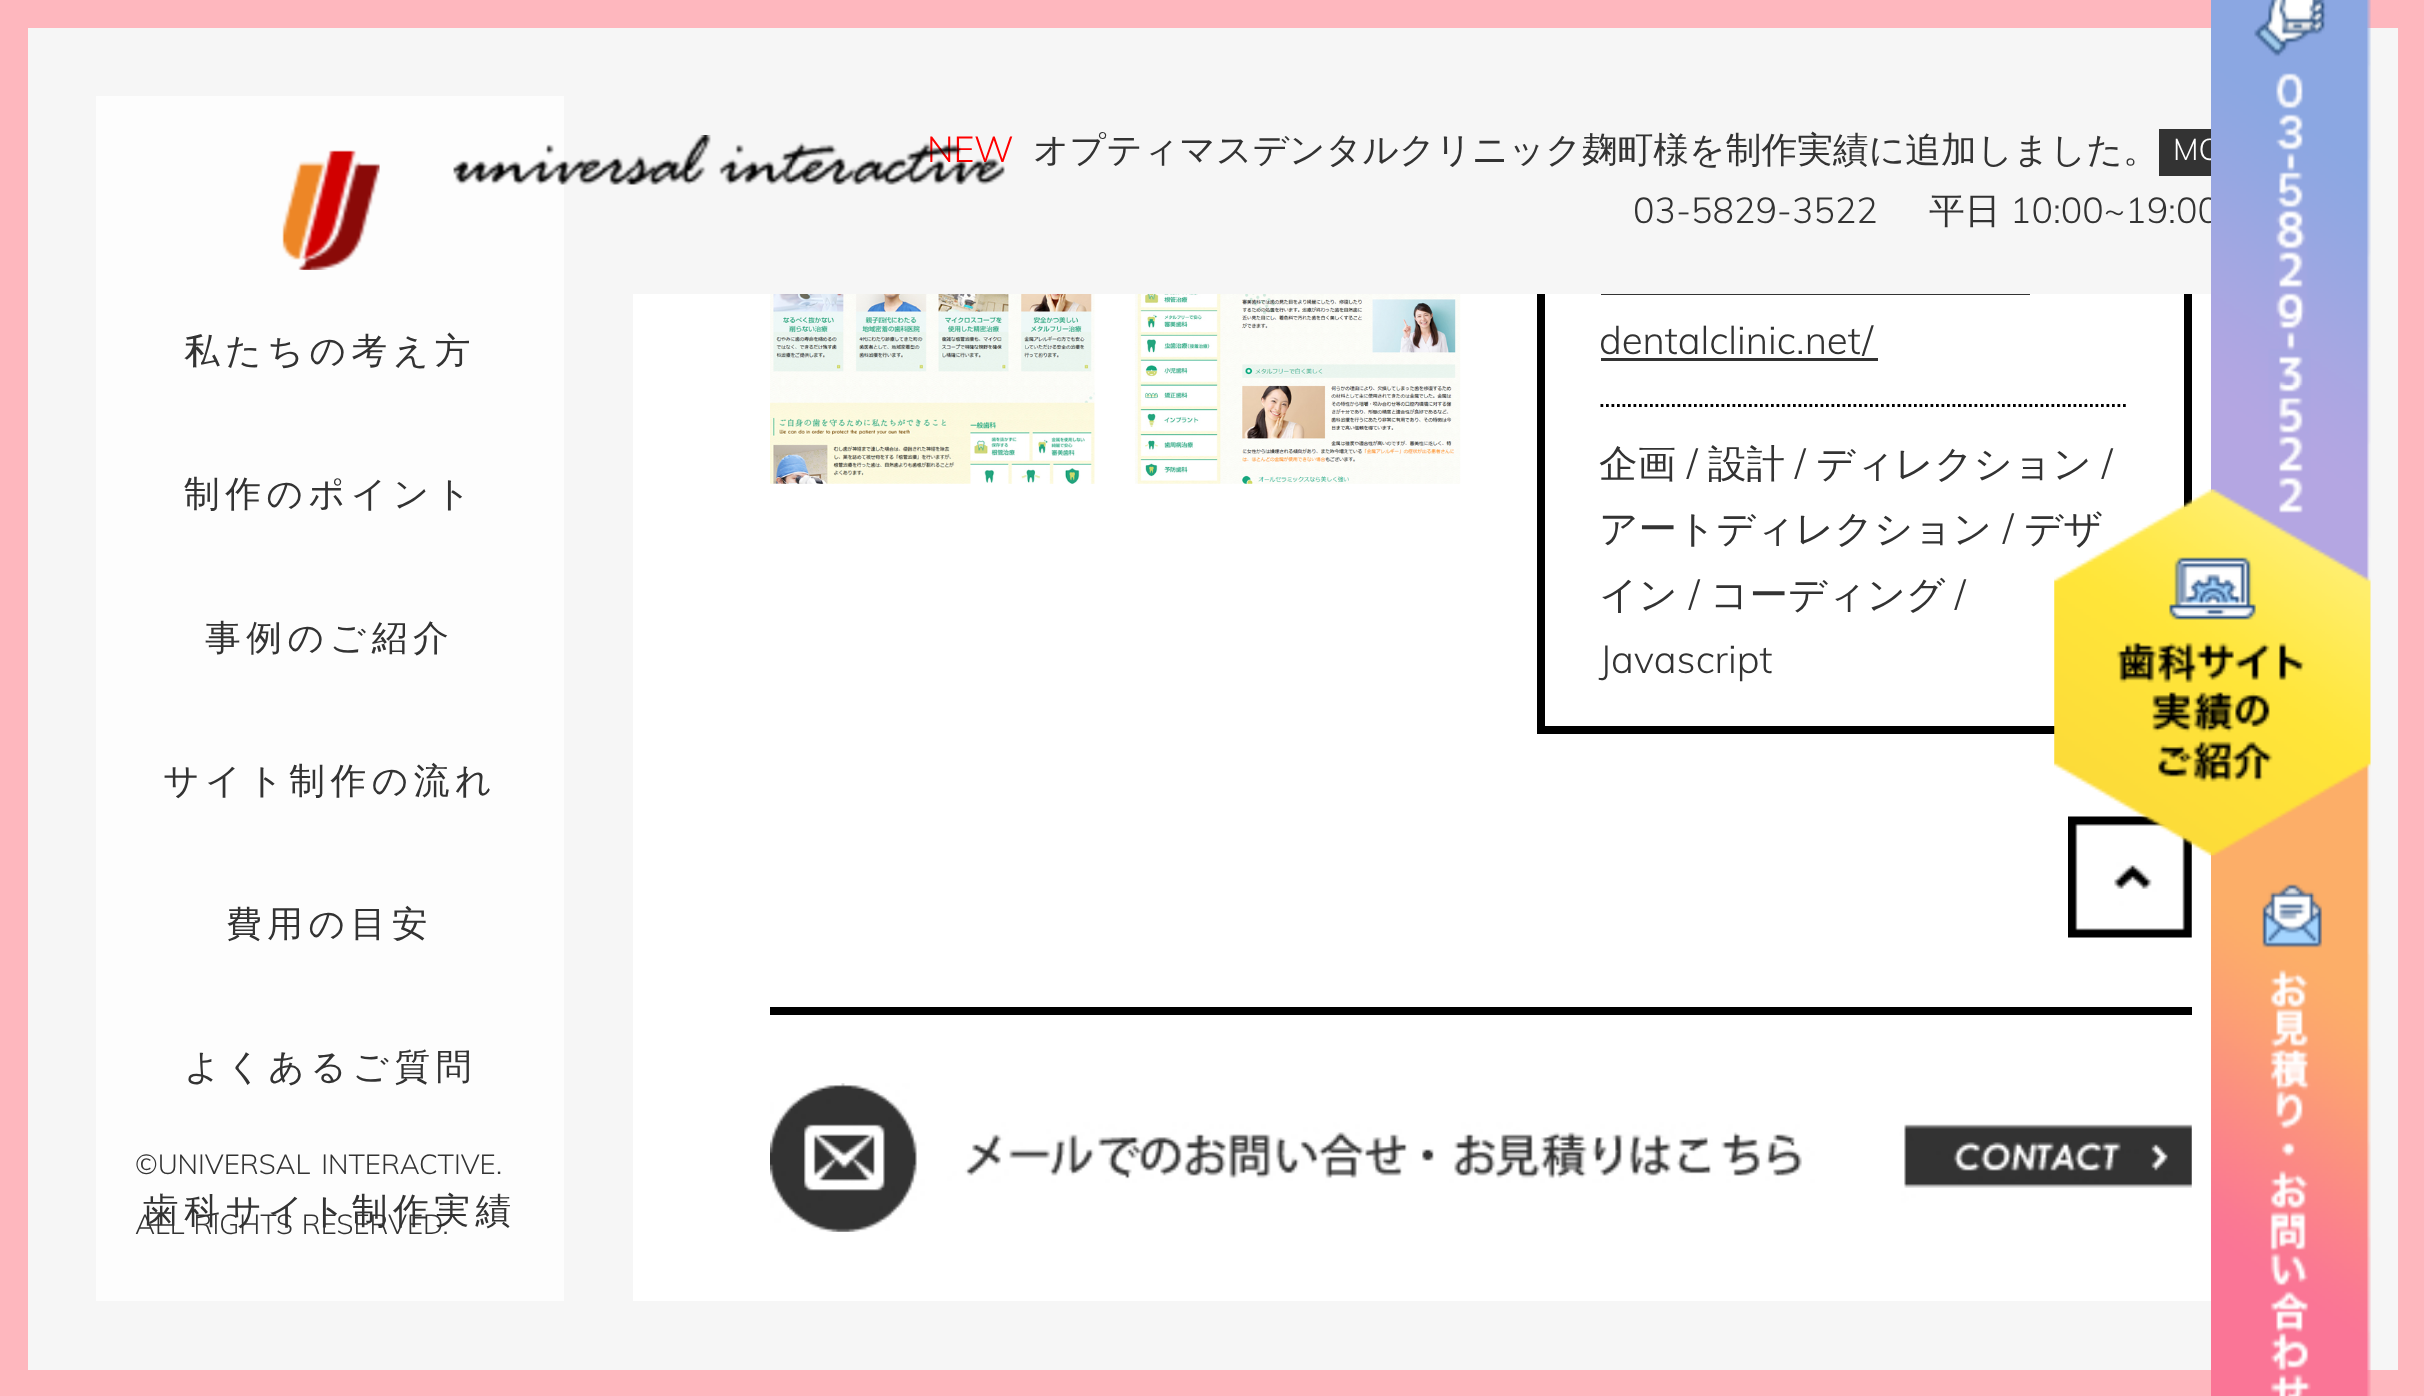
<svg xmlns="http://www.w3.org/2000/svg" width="2424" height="1396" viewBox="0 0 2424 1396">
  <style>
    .t1 { font: 300 30px Muli; fill: #fff; }
    .t2 { font: 300 35.75px Muli; fill: #333; }
    .t3 { font: 500 38.5px WenQuanYi Zen Hei; fill: #333; }
    .t4 { font: 300 35.75px Muli; fill: #f00; }
    .t5 { font: 500 35.75px WenQuanYi Zen Hei; letter-spacing: 5.5px; fill: #333; }
    .t6 { font: 300 27.5px Muli; fill: #333; }
    .t7 { font: 500 35.75px WenQuanYi Zen Hei; fill: #333; }
    .t8 { font: 300 38.5px Muli; fill: #333; }
  </style>
  <rect width="100%" height="100%" fill="#f6f6f6"/>
  <rect x="0" y="0" width="28" height="1396" fill="#feb7be"/>
  <rect x="633" y="294" width="1578" height="1007" fill="#fff"/>
  <rect x="1541" y="18" width="647" height="712" fill="none" stroke="#000" stroke-width="8"/>
  <rect x="28" y="0" width="2370" height="28" fill="#feb7be"/>
  <rect x="2398" y="0" width="26" height="1370" fill="#feb7be"/>
  <rect x="28" y="1370" width="2396" height="26" fill="#feb7be"/>
  <rect x="1537" y="28" width="655" height="266" fill="#f6f6f6"/>
  <rect x="2159" y="129" width="52" height="47" fill="#333"/>
  <text x="2173" y="160" class="t1">MO</text>
  <text x="2010" y="223" class="t2">10:00~19:00</text>
  <image x="2211" y="0" width="160" height="631" href="images/1.png"/>
  <image x="2211" y="761" width="160" height="635" href="images/3.png"/>
  <text x="2024" y="542" class="t3">デザ</text>
  <image x="2068" y="816" width="124" height="122" href="images/7.png"/>
  <image x="2054" y="489" width="317" height="367" href="images/2.png"/>
  <rect x="96" y="96" width="468" height="1205" fill="#fdfdfd"/>
  <image x="282" y="150" width="98" height="120" href="images/4.png"/>
  <text x="927" y="162" class="t4">NEW</text>
  <image x="453" y="135" width="552" height="50" href="images/5.png"/>
  <text x="184" y="363" class="t5">私たちの考え方</text>
  <text x="184" y="506" class="t5">制作のポイント</text>
  <text x="205" y="650" class="t5">事例のご紹介</text>
  <text x="163" y="793" class="t5">サイト制作の流れ</text>
  <text x="226" y="936" class="t5">費用の目安</text>
  <text x="184" y="1079" class="t5">よくあるご質問</text>
  <text x="143" y="1223" class="t5">歯科サイト制作実績</text>
  <text x="135" y="1174" word-spacing="4" class="t6">©UNIVERSAL INTERACTIVE.</text>
  <text x="135" y="1234" word-spacing="2" class="t6">ALL RIGHTS RESERVED.</text>
  <text x="1033" y="162" class="t7">オプティマスデンタルクリニック麹町様を制作実績に追加しました。</text>
  <text x="1633" y="223" class="t2">03-5829-3522</text>
  <text x="1929" y="223" class="t7">平日</text>
  <image x="770" y="294" width="691" height="190" href="images/6.png"/>
  <path d="M1600.5 405.5H2128.5" fill="none" stroke="#000" stroke-width="2.8" stroke-dasharray="2.75 2.75"/>
  <text x="1599" y="354" class="t8">dentalclinic.net/</text>
  <rect x="1601" y="294" width="429" height="1" fill="#333"/>
  <rect x="1601" y="358" width="277" height="3" fill="#333"/>
  <text x="1599" y="477" class="t3">企画</text>
  <text x="1687" y="477" class="t8">/</text>
  <text x="1708" y="477" class="t3">設計</text>
  <text x="1795" y="477" class="t8">/</text>
  <text x="1816" y="477" class="t3">ディレクション</text>
  <text x="2102" y="477" class="t8">/</text>
  <text x="1599" y="542" class="t3">アートディレクション</text>
  <text x="2003" y="542" class="t8">/</text>
  <text x="1599" y="608" class="t3">イン</text>
  <text x="1689" y="608" class="t8">/</text>
  <text x="1710" y="608" class="t3">コーディング</text>
  <text x="1955" y="608" class="t8">/</text>
  <text x="1599" y="673" class="t8">Javascript</text>
  <rect x="770" y="1007" width="1422" height="8" fill="#000"/>
  <image x="770" y="1083" width="1422" height="149" href="images/8.png"/>
</svg>
